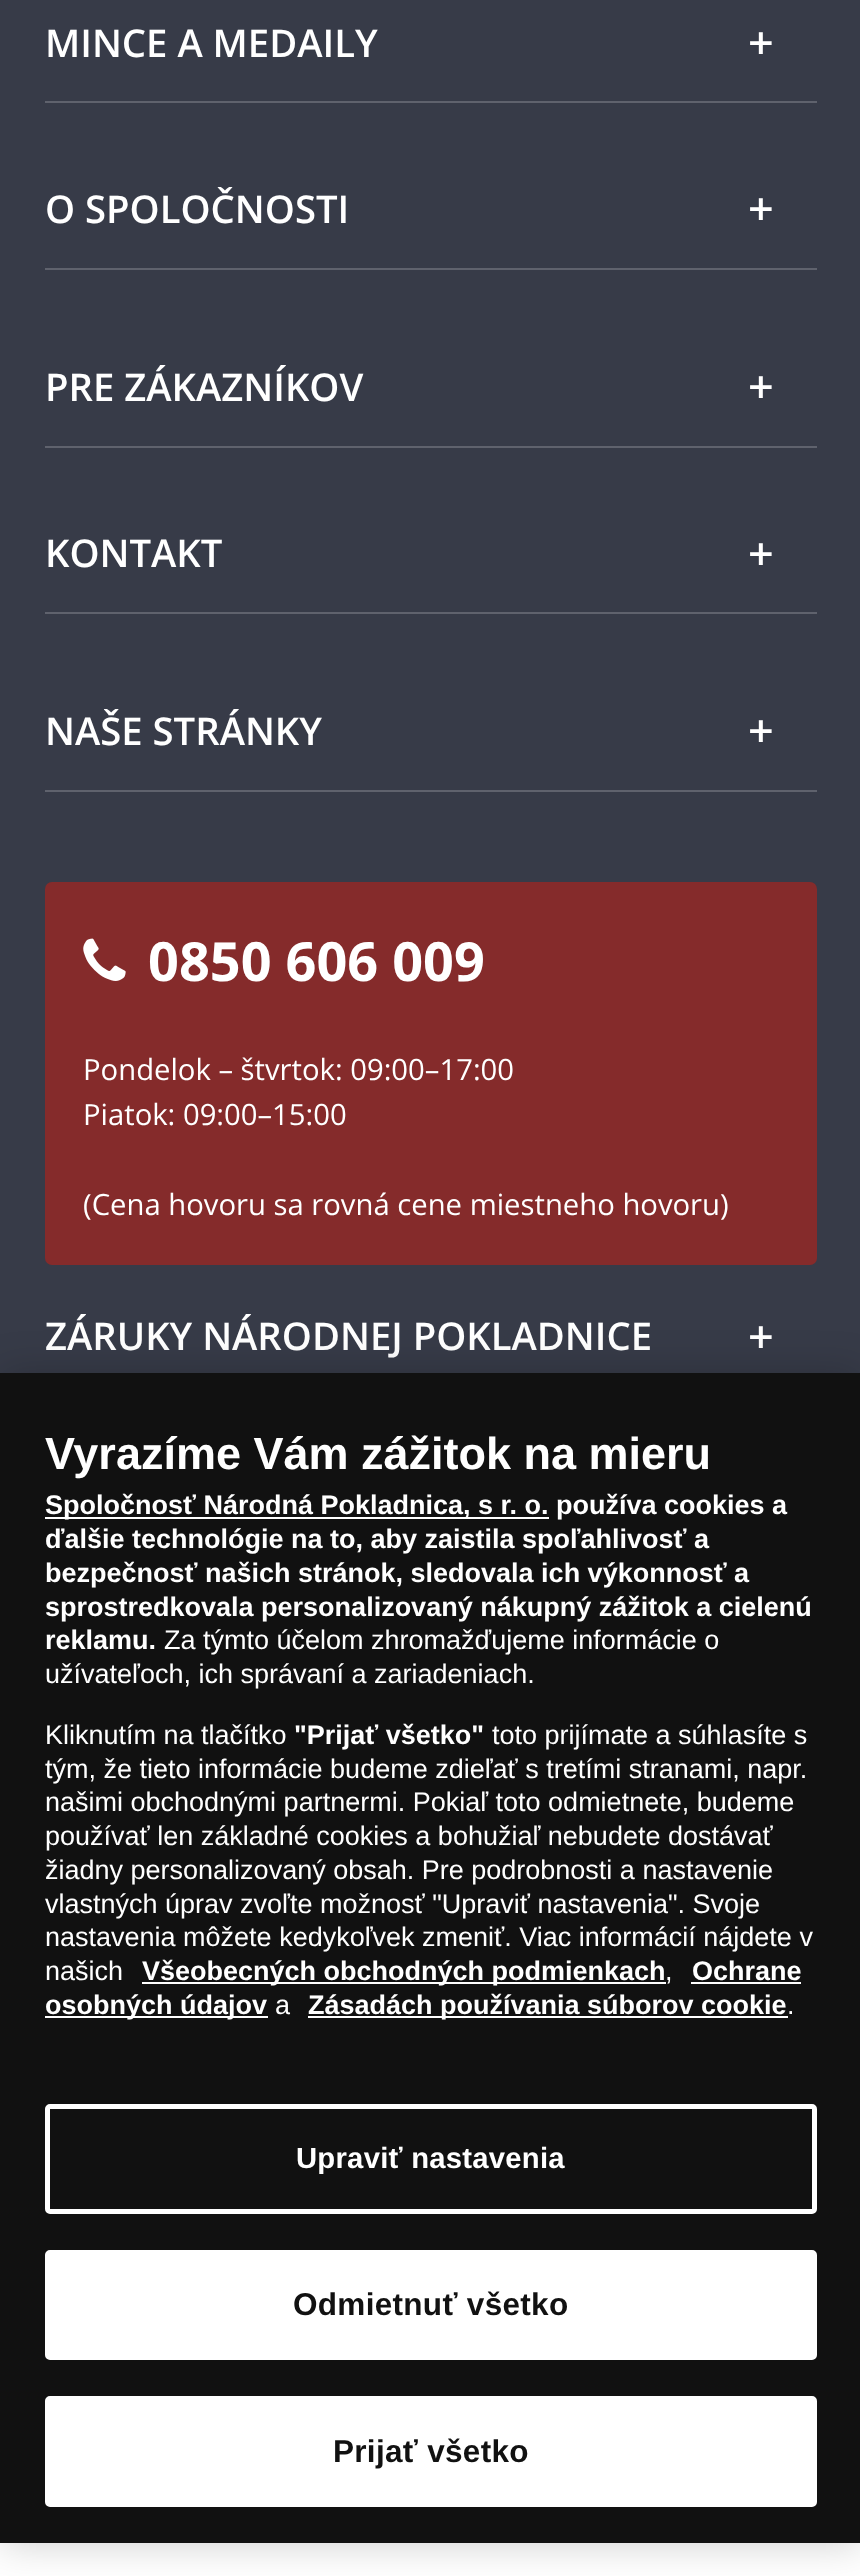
<svg xmlns="http://www.w3.org/2000/svg" width="860" height="2576" viewBox="0 0 860 2576">
  <style>
    .t1 { font: 600 38.25px Open Sans; fill: #fff; }
    .t2 { font: 600 45px Open Sans; fill: #fff; }
    .t3 { font: bold 54px Open Sans; fill: #fff; }
    .t4 { font: 29.25px Open Sans; fill: #fff; }
    .t5 { font: bold 45px Liberation Sans; fill: #fff; }
    .t6 { font: bold 27px Liberation Sans; fill: #fff; }
    .t7 { font: 27px Liberation Sans; fill: #fff; }
    .t8 { font: bold 29.25px Liberation Sans; letter-spacing: 0.25px; fill: #fff; }
    .t9 { font: bold 31.5px Liberation Sans; letter-spacing: 0.3px; fill: #111; }
  </style>
  <rect width="100%" height="100%" fill="#fff"/>
  <rect x="0" y="0" width="860" height="1373" fill="#373b48"/>
  <rect x="45" y="101" width="772" height="2" fill="#5f626d"/>
  <text x="45" y="57" class="t1">MINCE A MEDAILY</text>
  <text x="748" y="59" class="t2">+</text>
  <rect x="45" y="268" width="772" height="2" fill="#5f626d"/>
  <text x="45" y="223" class="t1">O SPOLOČNOSTI</text>
  <text x="748" y="225" class="t2">+</text>
  <rect x="45" y="446" width="772" height="2" fill="#5f626d"/>
  <text x="45" y="401" class="t1">PRE ZÁKAZNÍKOV</text>
  <text x="748" y="403" class="t2">+</text>
  <rect x="45" y="612" width="772" height="2" fill="#5f626d"/>
  <text x="45" y="567" class="t1">KONTAKT</text>
  <text x="748" y="570" class="t2">+</text>
  <rect x="45" y="790" width="772" height="2" fill="#5f626d"/>
  <text x="45" y="745" class="t1">NAŠE STRÁNKY</text>
  <text x="748" y="747" class="t2">+</text>
  <rect x="45" y="882" width="772" height="383" rx="7" fill="#852b2b"/>
  <image x="83" y="938" width="43" height="43" href="images/1.png"/>
  <text x="148" y="981" class="t3">0850 606 009</text>
  <text x="83" y="1080" class="t4">Pondelok – štvrtok: 09:00–17:00</text>
  <text x="83" y="1125" class="t4">Piatok: 09:00–15:00</text>
  <text x="83" y="1215" class="t4">(Cena hovoru sa rovná cene miestneho hovoru)</text>
  <text x="45" y="1350" class="t1">ZÁRUKY NÁRODNEJ POKLADNICE</text>
  <text x="748" y="1353" class="t2">+</text>
  <rect x="0" y="1373" width="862" height="1170" fill="#00000033" filter="blur(20px)"/>
  <rect x="0" y="1373" width="860" height="1170" fill="#111"/>
  <text x="45" y="1469" class="t5">Vyrazíme Vám zážitok na mieru</text>
  <rect x="45" y="1517" width="504" height="2" fill="#fff"/>
  <text x="45" y="1514" class="t6">Spoločnosť Národná Pokladnica, s r. o. používa cookies a</text>
  <text x="45" y="1548" class="t6">ďalšie technológie na to, aby zaistila spoľahlivosť a</text>
  <text x="45" y="1582" class="t6">bezpečnosť našich stránok, sledovala ich výkonnosť a</text>
  <text x="45" y="1616" class="t6">sprostredkovala personalizovaný nákupný zážitok a cielenú</text>
  <text x="45" y="1649" class="t6">reklamu.</text>
  <text x="164" y="1649" class="t7">Za týmto účelom zhromažďujeme informácie o</text>
  <text x="45" y="1683" class="t7">užívateľoch, ich správaní a zariadeniach.</text>
  <text x="45" y="1744" class="t7">Kliknutím na tlačítko</text>
  <text x="294" y="1744" class="t6">"Prijať všetko"</text>
  <text x="492" y="1744" class="t7">toto prijímate a súhlasíte s</text>
  <text x="45" y="1778" class="t7">tým, že tieto informácie budeme zdieľať s tretími stranami, napr.</text>
  <text x="45" y="1811" class="t7">našimi obchodnými partnermi. Pokiaľ toto odmietnete, budeme</text>
  <text x="45" y="1845" class="t7">používať len základné cookies a bohužiaľ nebudete dostávať</text>
  <text x="45" y="1879" class="t7">žiadny personalizovaný obsah. Pre podrobnosti a nastavenie</text>
  <text x="45" y="1913" class="t7">vlastných úprav zvoľte možnosť "Upraviť nastavenia". Svoje</text>
  <text x="45" y="1946" class="t7">nastavenia môžete kedykoľvek zmeniť. Viac informácií nájdete v</text>
  <text x="45" y="1980" class="t7">našich</text>
  <rect x="142" y="1982" width="524" height="2" fill="#fff"/>
  <text x="142" y="1980" class="t6">Všeobecných obchodných podmienkach</text>
  <text x="665" y="1980" class="t7">,</text>
  <text x="692" y="1980" class="t6">Ochrane</text>
  <rect x="691" y="1982" width="110" height="2" fill="#fff"/>
  <rect x="45" y="2016" width="223" height="2" fill="#fff"/>
  <text x="45" y="2014" class="t6">osobných údajov</text>
  <text x="275" y="2014" class="t7">a</text>
  <rect x="308" y="2016" width="480" height="2" fill="#fff"/>
  <text x="308" y="2014" class="t6">Zásadách používania súborov cookie</text>
  <text x="787" y="2014" class="t7">.</text>
  <rect x="47.5" y="2106.5" width="767" height="105" rx="2.5" fill="none" stroke="#fff" stroke-width="5"/>
  <text x="296" y="2168" class="t8">Upraviť nastavenia</text>
  <rect x="46" y="2251" width="770" height="108" rx="4" fill="#fff" stroke="#fff" stroke-width="2"/>
  <text x="293" y="2315" class="t9">Odmietnuť všetko</text>
  <rect x="46" y="2397" width="770" height="109" rx="4" fill="#fff" stroke="#fff" stroke-width="2"/>
  <text x="333" y="2462" class="t9">Prijať všetko</text>
</svg>
